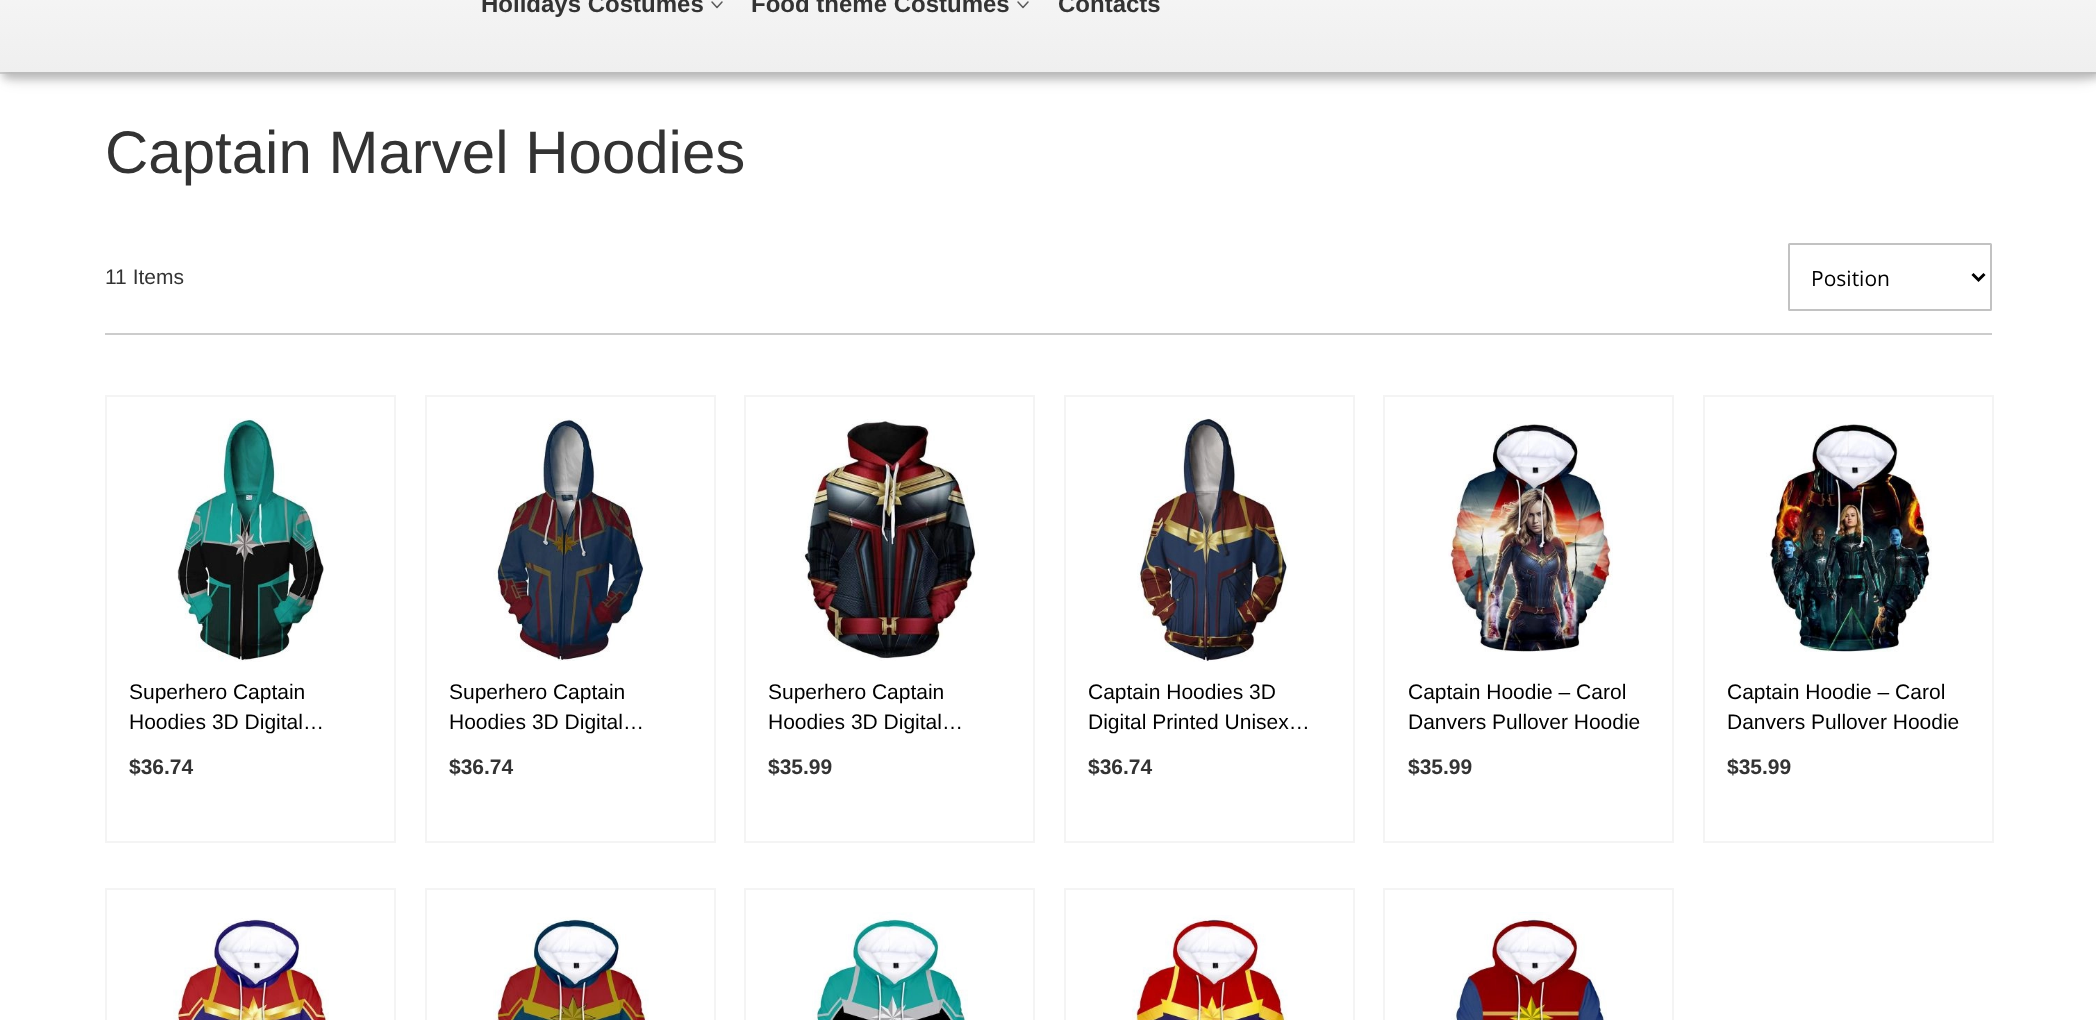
<svg xmlns="http://www.w3.org/2000/svg" width="2096" height="1020" viewBox="0 0 2096 1020">
  <style>
    .t1 { font: bold 24px Liberation Sans; fill: #333; }
    .t2 { font: 60px Liberation Sans; fill: #333; }
    .t3 { font: 21px Liberation Sans; fill: #333; }
    .t4 { font: 21px Open Sans; fill: #000; }
    .t5 { font: 21px Liberation Sans; fill: #000; }
    .t6 { font: bold 21px Liberation Sans; fill: #333; }
  </style>
  <defs>
    <linearGradient id="g1" gradientUnits="userSpaceOnUse" x1="1049" y1="-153" x2="1049" y2="72"><stop offset="0" stop-color="#fff"/><stop offset="1" stop-color="#efefef"/></linearGradient>
  </defs>
  <rect width="100%" height="100%" fill="#fff"/>
  <rect x="8" y="-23" width="2082" height="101" fill="#18171730" filter="blur(7.5px)"/>
  <rect x="0" y="72" width="2096" height="2" fill="#d1d1d1"/>
  <rect x="3" y="-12" width="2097" height="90" fill="#b9b9b9" filter="blur(4px)"/>
  <rect x="0" y="0" width="2096" height="72" fill="url(#g1)"/>
  <text x="481" y="12" class="t1">Holidays Costumes</text>
  <path d="M722 2L717 7.5L712 2" fill="none" stroke="#5a5a5a" stroke-width="1.5" stroke-linecap="round" stroke-linejoin="round"/>
  <text x="751" y="12" class="t1">Food theme Costumes</text>
  <path d="M1028 2L1023 7.5L1018 2" fill="none" stroke="#5a5a5a" stroke-width="1.5" stroke-linecap="round" stroke-linejoin="round"/>
  <text x="1058" y="12" class="t1">Contacts</text>
  <text x="105" y="173" class="t2">Captain Marvel Hoodies</text>
  <rect x="105" y="333" width="1887" height="2" fill="#ccc"/>
  <text x="105" y="284" class="t3">11 Items</text>
  <rect x="1789" y="244" width="202" height="66" rx="0.5" fill="none" stroke="#c2c2c2" stroke-width="2"/>
  <path d="M1972.5 274L1978.5 280L1984.5 274" fill="none" stroke="#000" stroke-width="3"/>
  <text x="1811" y="286" class="t4">Position</text>
  <rect x="106" y="396" width="289" height="446" fill="none" stroke="#f4f4f4" stroke-width="2"/>
  <image x="177" y="418" width="147" height="244" href="images/1.png"/>
  <text x="129" y="699" class="t5">Superhero Captain</text>
  <text x="129" y="729" class="t5">Hoodies 3D Digital…</text>
  <text x="129" y="774" class="t6">$36.74</text>
  <rect x="426" y="396" width="289" height="446" fill="none" stroke="#f4f4f4" stroke-width="2"/>
  <image x="493" y="418" width="151" height="243" href="images/2.png"/>
  <text x="449" y="699" class="t5">Superhero Captain</text>
  <text x="449" y="729" class="t5">Hoodies 3D Digital…</text>
  <text x="449" y="774" class="t6">$36.74</text>
  <rect x="745" y="396" width="289" height="446" fill="none" stroke="#f4f4f4" stroke-width="2"/>
  <image x="801" y="419" width="178" height="242" href="images/3.png"/>
  <text x="768" y="699" class="t5">Superhero Captain</text>
  <text x="768" y="729" class="t5">Hoodies 3D Digital…</text>
  <text x="768" y="774" class="t6">$35.99</text>
  <rect x="1065" y="396" width="289" height="446" fill="none" stroke="#f4f4f4" stroke-width="2"/>
  <image x="1137" y="418" width="151" height="244" href="images/4.png"/>
  <text x="1088" y="699" class="t5">Captain Hoodies 3D</text>
  <text x="1088" y="729" class="t5">Digital Printed Unisex…</text>
  <text x="1088" y="774" class="t6">$36.74</text>
  <rect x="1384" y="396" width="289" height="446" fill="none" stroke="#f4f4f4" stroke-width="2"/>
  <image x="1448" y="424" width="165" height="228" href="images/5.png"/>
  <text x="1408" y="699" class="t5">Captain Hoodie – Carol</text>
  <text x="1408" y="729" class="t5">Danvers Pullover Hoodie</text>
  <text x="1408" y="774" class="t6">$35.99</text>
  <rect x="1704" y="396" width="289" height="446" fill="none" stroke="#f4f4f4" stroke-width="2"/>
  <image x="1766" y="424" width="166" height="228" href="images/6.png"/>
  <text x="1727" y="699" class="t5">Captain Hoodie – Carol</text>
  <text x="1727" y="729" class="t5">Danvers Pullover Hoodie</text>
  <text x="1727" y="774" class="t6">$35.99</text>
  <rect x="106" y="889" width="289" height="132" fill="none" stroke="#f4f4f4" stroke-width="2"/>
  <image x="173" y="918" width="156" height="102" href="images/7.png"/>
  <rect x="426" y="889" width="289" height="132" fill="none" stroke="#f4f4f4" stroke-width="2"/>
  <image x="493" y="917" width="156" height="103" href="images/8.png"/>
  <rect x="745" y="889" width="289" height="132" fill="none" stroke="#f4f4f4" stroke-width="2"/>
  <image x="812" y="912" width="156" height="108" href="images/9.png"/>
  <rect x="1065" y="889" width="289" height="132" fill="none" stroke="#f4f4f4" stroke-width="2"/>
  <image x="1132" y="915" width="156" height="105" href="images/10.png"/>
  <rect x="1384" y="889" width="289" height="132" fill="none" stroke="#f4f4f4" stroke-width="2"/>
  <image x="1451" y="912" width="156" height="108" href="images/11.png"/>
</svg>
